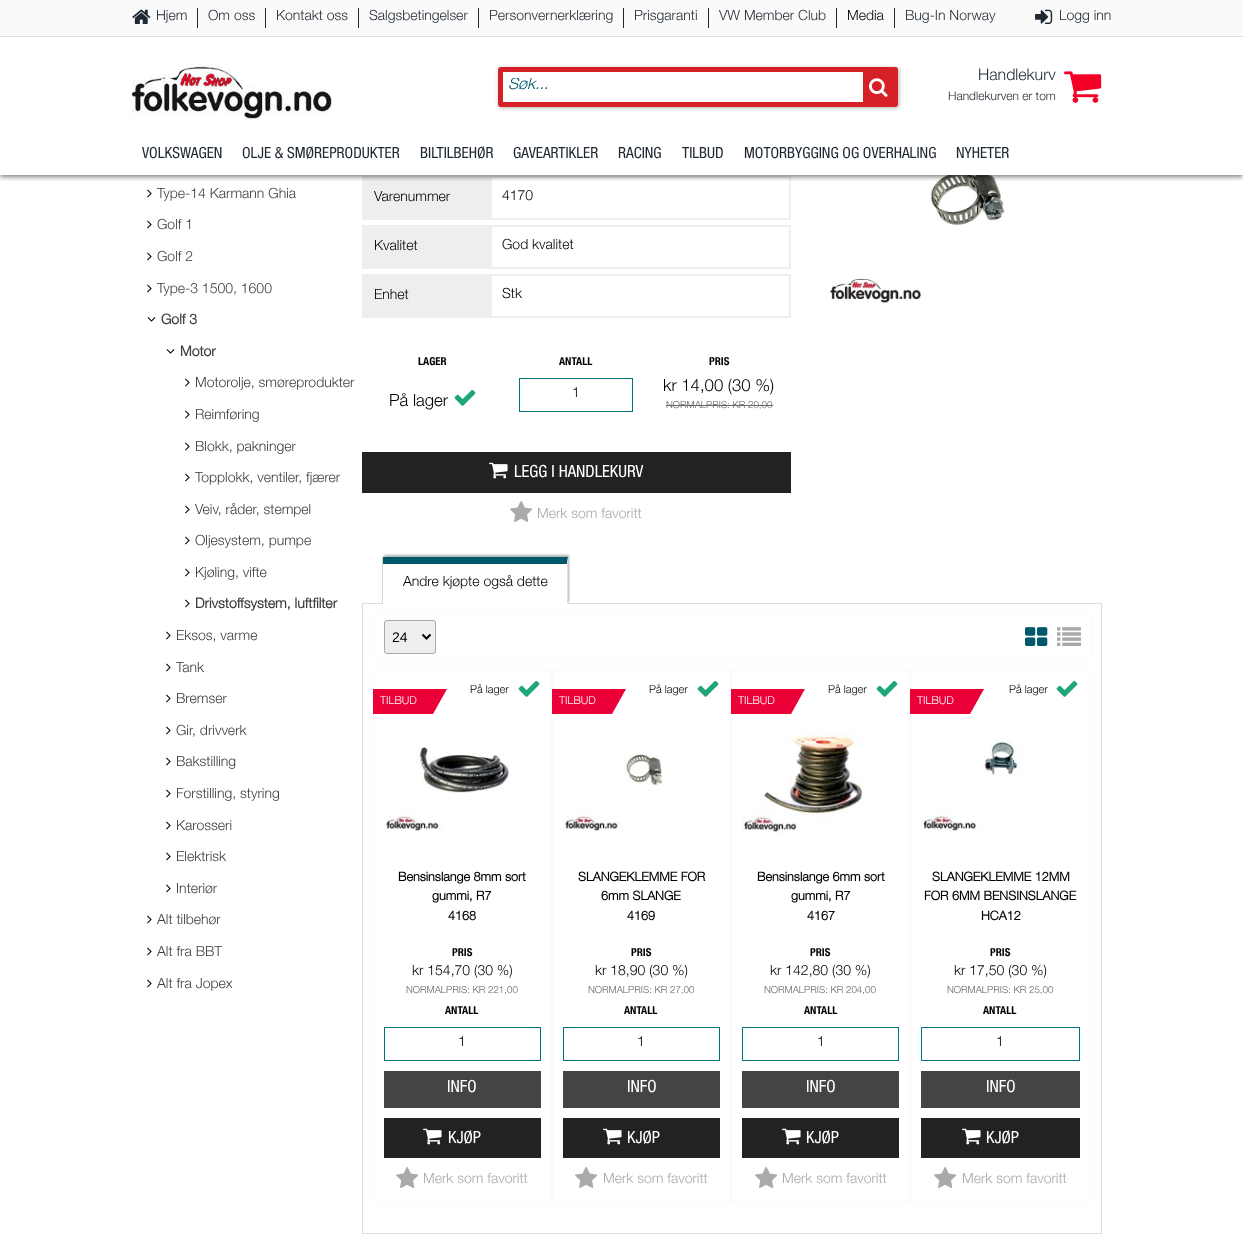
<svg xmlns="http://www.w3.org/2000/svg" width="1243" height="1234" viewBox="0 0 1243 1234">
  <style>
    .t1 { font: 300 14px Helvetica Neue; fill: #1f2833; }
    .t2 { font: 300 14px Helvetica Neue; fill: #000; }
    .t3 { font: italic 300 16px Helvetica Neue; fill: #00586a; }
    .t4 { font: 300 16px Helvetica Neue; fill: #1f2833; }
    .t5 { font: 300 12px Helvetica Neue; fill: #1f2833; }
    .t6 { font: 15.4px Helvetica Neue; fill: #1f2833; }
    .t7 { font: 300 14px Helvetica Neue; fill: #3d3d3d; }
    .t8 { font: bold 14px Helvetica Neue; fill: #3d3d3d; }
    .t9 { font: bold 11px 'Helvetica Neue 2'; fill: #000; }
    .t10 { font: 300 16.75px Helvetica Neue; fill: #000; }
    .t11 { font: 300 9.75px Helvetica Neue; fill: #666; }
    .t12 { font: 16.75px Helvetica Neue; fill: #fff; }
    .t13 { font: 300 14px Helvetica Neue; fill: #aaa; }
    .t14 { font: 14px Liberation Sans; fill: #000; }
    .t15 { font: 300 11px Helvetica Neue; fill: #000; }
    .t16 { font: 300 11px Helvetica Neue; fill: #fff; }
    .t17 { font: bold 12.6px Helvetica Neue; fill: #000; }
  </style>
  <defs>
    <clipPath id="clip1"><rect x="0" y="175" width="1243" height="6"/></clipPath>
    <clipPath id="clip2"><rect x="508" y="78" width="346" height="16"/></clipPath>
  </defs>
  <rect width="100%" height="100%" fill="#fff"/>
  <rect x="362" y="176" width="128" height="44" fill="#eee"/>
  <rect x="491" y="177" width="299" height="42" fill="none" stroke="#eee" stroke-width="2"/>
  <image x="830" y="175" width="175" height="128" href="images/8.png"/>
  <g clip-path="url(#clip1)">
    <rect x="0" y="2" width="1243" height="175" fill="#00000080" filter="blur(2.5px)"/>
  </g>
  <rect x="0" y="0" width="1243" height="36" fill="#fafafa"/>
  <rect x="0" y="36" width="1243" height="1" fill="#ddd"/>
  <rect x="197" y="8" width="1" height="20" fill="#1f2833"/>
  <image x="132" y="9" width="19" height="15" href="images/1.png"/>
  <text x="156" y="20" class="t1">Hjem</text>
  <rect x="265" y="8" width="1" height="20" fill="#1f2833"/>
  <text x="208" y="20" class="t1">Om oss</text>
  <rect x="358" y="8" width="1" height="20" fill="#1f2833"/>
  <text x="276" y="20" class="t1">Kontakt oss</text>
  <rect x="478" y="8" width="1" height="20" fill="#1f2833"/>
  <text x="369" y="20" class="t1">Salgsbetingelser</text>
  <rect x="623" y="8" width="1" height="20" fill="#1f2833"/>
  <text x="489" y="20" class="t1">Personvernerklæring</text>
  <rect x="708" y="8" width="1" height="20" fill="#1f2833"/>
  <text x="634" y="20" class="t1">Prisgaranti</text>
  <rect x="836" y="8" width="1" height="20" fill="#1f2833"/>
  <text x="719" y="20" class="t1">VW Member Club</text>
  <rect x="894" y="8" width="1" height="20" fill="#1f2833"/>
  <text x="847" y="20" class="t2">Media</text>
  <text x="905" y="20" class="t1">Bug-In Norway</text>
  <image x="1035" y="9" width="18" height="15" href="images/2.png"/>
  <text x="1059" y="20" class="t1">Logg inn</text>
  <image x="132" y="63" width="200" height="58" href="images/3.png"/>
  <rect x="499" y="68" width="400" height="40" rx="3" fill="#0000004d" filter="blur(2px)"/>
  <rect x="500.5" y="69.5" width="395" height="35" rx="0.5" fill="#fff" stroke="#d62027" stroke-width="5"/>
  <g clip-path="url(#clip2)">
    <text x="508" y="89" class="t3">Søk...</text>
  </g>
  <rect x="863" y="72" width="30" height="30" fill="#d62027"/>
  <image x="869" y="78" width="19" height="19" href="images/4.png"/>
  <text x="978" y="80" class="t4">Handlekurv</text>
  <text x="948" y="100" class="t5">Handlekurven er tom</text>
  <image x="1064" y="71" width="38" height="32" href="images/5.png"/>
  <text x="142" y="158" class="t6">VOLKSWAGEN</text>
  <text x="242" y="158" class="t6">OLJE &amp; SMØREPRODUKTER</text>
  <text x="420" y="158" class="t6">BILTILBEHØR</text>
  <text x="513" y="158" class="t6">GAVEARTIKLER</text>
  <text x="618" y="158" class="t6">RACING</text>
  <text x="682" y="158" class="t6">TILBUD</text>
  <text x="744" y="158" class="t6">MOTORBYGGING OG OVERHALING</text>
  <text x="956" y="158" class="t6">NYHETER</text>
  <image x="147" y="189" width="5" height="9" href="images/6.png"/>
  <text x="157" y="198" class="t7">Type-14 Karmann Ghia</text>
  <image x="147" y="220" width="5" height="9" href="images/6.png"/>
  <text x="157" y="229" class="t7">Golf 1</text>
  <image x="147" y="252" width="5" height="9" href="images/6.png"/>
  <text x="157" y="261" class="t7">Golf 2</text>
  <image x="147" y="284" width="5" height="9" href="images/6.png"/>
  <text x="157" y="293" class="t7">Type-3 1500, 1600</text>
  <image x="147" y="317" width="9" height="5" href="images/7.png"/>
  <text x="161" y="324" class="t8">Golf 3</text>
  <image x="166" y="349" width="9" height="5" href="images/7.png"/>
  <text x="180" y="356" class="t8">Motor</text>
  <image x="185" y="378" width="5" height="9" href="images/6.png"/>
  <text x="195" y="387" class="t7">Motorolje, smøreprodukter</text>
  <image x="185" y="410" width="5" height="9" href="images/6.png"/>
  <text x="195" y="419" class="t7">Reimføring</text>
  <image x="185" y="442" width="5" height="9" href="images/6.png"/>
  <text x="195" y="451" class="t7">Blokk, pakninger</text>
  <image x="185" y="473" width="5" height="9" href="images/6.png"/>
  <text x="195" y="482" class="t7">Topplokk, ventiler, fjærer</text>
  <image x="185" y="505" width="5" height="9" href="images/6.png"/>
  <text x="195" y="514" class="t7">Veiv, råder, stempel</text>
  <image x="185" y="536" width="5" height="9" href="images/6.png"/>
  <text x="195" y="545" class="t7">Oljesystem, pumpe</text>
  <image x="185" y="568" width="5" height="9" href="images/6.png"/>
  <text x="195" y="577" class="t7">Kjøling, vifte</text>
  <image x="185" y="599" width="5" height="9" href="images/6.png"/>
  <text x="195" y="608" class="t8">Drivstoffsystem, luftfilter</text>
  <image x="166" y="631" width="5" height="9" href="images/6.png"/>
  <text x="176" y="640" class="t7">Eksos, varme</text>
  <image x="166" y="663" width="5" height="9" href="images/6.png"/>
  <text x="176" y="672" class="t7">Tank</text>
  <image x="166" y="694" width="5" height="9" href="images/6.png"/>
  <text x="176" y="703" class="t7">Bremser</text>
  <image x="166" y="726" width="5" height="9" href="images/6.png"/>
  <text x="176" y="735" class="t7">Gir, drivverk</text>
  <image x="166" y="757" width="5" height="9" href="images/6.png"/>
  <text x="176" y="766" class="t7">Bakstilling</text>
  <image x="166" y="789" width="5" height="9" href="images/6.png"/>
  <text x="176" y="798" class="t7">Forstilling, styring</text>
  <image x="166" y="821" width="5" height="9" href="images/6.png"/>
  <text x="176" y="830" class="t7">Karosseri</text>
  <image x="166" y="852" width="5" height="9" href="images/6.png"/>
  <text x="176" y="861" class="t7">Elektrisk</text>
  <image x="166" y="884" width="5" height="9" href="images/6.png"/>
  <text x="176" y="893" class="t7">Interiør</text>
  <image x="147" y="915" width="5" height="9" href="images/6.png"/>
  <text x="157" y="924" class="t7">Alt tilbehør</text>
  <image x="147" y="947" width="5" height="9" href="images/6.png"/>
  <text x="157" y="956" class="t7">Alt fra BBT</text>
  <image x="147" y="979" width="5" height="9" href="images/6.png"/>
  <text x="157" y="988" class="t7">Alt fra Jopex</text>
  <text x="374" y="201" class="t2">Varenummer</text>
  <text x="502" y="200" class="t2">4170</text>
  <rect x="362" y="225" width="128" height="44" fill="#eee"/>
  <text x="374" y="250" class="t2">Kvalitet</text>
  <rect x="491" y="226" width="299" height="42" fill="none" stroke="#eee" stroke-width="2"/>
  <text x="502" y="249" class="t2">God kvalitet</text>
  <rect x="362" y="274" width="128" height="44" fill="#eee"/>
  <text x="374" y="299" class="t2">Enhet</text>
  <rect x="491" y="275" width="299" height="42" fill="none" stroke="#eee" stroke-width="2"/>
  <text x="502" y="298" class="t2">Stk</text>
  <text x="418" y="365" class="t9">LAGER</text>
  <text x="389" y="406" class="t10">På lager</text>
  <image x="454" y="389" width="22" height="17" href="images/9.png"/>
  <text x="559" y="365" class="t9">ANTALL</text>
  <rect x="519.5" y="378.5" width="113" height="33" fill="none" stroke="#00727b"/>
  <text x="572" y="397" class="t2">1</text>
  <text x="709" y="365" class="t9">PRIS</text>
  <text x="663" y="391" class="t10">kr 14,00 (30 %)</text>
  <text x="666" y="408" class="t11">NORMALPRIS: KR 20,00</text>
  <rect x="666" y="405" width="107" height="1" fill="#666"/>
  <rect x="362" y="452" width="429" height="41" fill="#222"/>
  <image x="489" y="462" width="19" height="17" href="images/10.png"/>
  <text x="514" y="477" class="t12">LEGG I HANDLEKURV</text>
  <image x="510" y="501" width="23" height="21" href="images/11.png"/>
  <text x="537" y="518" class="t13">Merk som favoritt</text>
  <rect x="362" y="603" width="740" height="1" fill="#ddd"/>
  <rect x="382" y="557" width="1" height="46" fill="#ddd"/>
  <rect x="384" y="555" width="185" height="47" fill="#0000004d" filter="blur(1px)"/>
  <rect x="383" y="557" width="185" height="46" fill="#fff"/>
  <path d="M383 557H568L567 564H383Z" fill="#00586a"/>
  <path d="M568 557V604L567 603V564Z" fill="#ddd"/>
  <rect x="383" y="603" width="185" height="1" fill="#fff"/>
  <text x="403" y="586" class="t2">Andre kjøpte også dette</text>
  <rect x="1101" y="604" width="1" height="630" fill="#ddd"/>
  <rect x="362" y="1233" width="740" height="1" fill="#ddd"/>
  <rect x="362" y="604" width="1" height="630" fill="#ddd"/>
  <rect x="373.5" y="614.5" width="719" height="45" rx="2.5" fill="none" stroke="#fafafa"/>
  <rect x="384.5" y="620.5" width="51" height="33" rx="2.5" fill="#efefef" stroke="#a9a9a9"/>
  <path d="M422.5 634.5L426.5 638.5L430.5 634.5" fill="none" stroke="#000" stroke-width="2"/>
  <text x="392" y="642" class="t14">24</text>
  <image x="1025" y="627" width="23" height="19" href="images/12.png"/>
  <image x="1057" y="627" width="24" height="19" href="images/13.png"/>
  <rect x="373" y="670" width="718" height="1" fill="#fafafa"/>
  <rect x="1090" y="670" width="1" height="533" fill="#fafafa"/>
  <rect x="373" y="1202" width="718" height="1" fill="#fafafa"/>
  <rect x="551" y="671" width="2" height="532" fill="#fafafa"/>
  <rect x="373" y="671" width="1" height="532" fill="#fafafa"/>
  <text x="470" y="693" class="t15">På lager</text>
  <image x="518" y="680" width="22" height="17" href="images/9.png"/>
  <image x="384" y="747" width="125" height="85" href="images/14.png"/>
  <path d="M373 689H447L433 714H373Z" fill="#eb0037"/>
  <text x="380" y="704" class="t16">TILBUD</text>
  <text x="398" y="881" class="t17">Bensinslange 8mm sort</text>
  <text x="432" y="900" class="t17">gummi, R7</text>
  <text x="448" y="920" class="t17">4168</text>
  <text x="452" y="956" class="t9">PRIS</text>
  <text x="412" y="975" class="t2">kr 154,70 (30 %)</text>
  <text x="406" y="993" class="t11">NORMALPRIS: KR 221,00</text>
  <text x="445" y="1014" class="t9">ANTALL</text>
  <rect x="384.5" y="1027.5" width="156" height="33" fill="none" stroke="#00727b"/>
  <text x="458" y="1046" class="t2">1</text>
  <rect x="384" y="1071" width="157" height="37" fill="#444"/>
  <text x="447" y="1092" class="t12">INFO</text>
  <rect x="384" y="1118" width="157" height="40" fill="#222"/>
  <image x="423" y="1128" width="19" height="17" href="images/10.png"/>
  <text x="448" y="1143" class="t12">KJØP</text>
  <image x="396" y="1167" width="23" height="21" href="images/11.png"/>
  <text x="423" y="1183" class="t13">Merk som favoritt</text>
  <rect x="730" y="671" width="2" height="532" fill="#fafafa"/>
  <text x="649" y="693" class="t15">På lager</text>
  <image x="697" y="680" width="22" height="17" href="images/9.png"/>
  <image x="563" y="754" width="101" height="78" href="images/15.png"/>
  <path d="M552 689H626L612 714H552Z" fill="#eb0037"/>
  <text x="559" y="704" class="t16">TILBUD</text>
  <text x="578" y="881" class="t17">SLANGEKLEMME FOR</text>
  <text x="601" y="900" class="t17">6mm SLANGE</text>
  <text x="627" y="920" class="t17">4169</text>
  <text x="631" y="956" class="t9">PRIS</text>
  <text x="595" y="975" class="t2">kr 18,90 (30 %)</text>
  <text x="588" y="993" class="t11">NORMALPRIS: KR 27,00</text>
  <text x="624" y="1014" class="t9">ANTALL</text>
  <rect x="563.5" y="1027.5" width="156" height="33" fill="none" stroke="#00727b"/>
  <text x="637" y="1046" class="t2">1</text>
  <rect x="563" y="1071" width="157" height="37" fill="#444"/>
  <text x="627" y="1092" class="t12">INFO</text>
  <rect x="563" y="1118" width="157" height="40" fill="#222"/>
  <image x="603" y="1128" width="19" height="17" href="images/10.png"/>
  <text x="627" y="1143" class="t12">KJØP</text>
  <image x="575" y="1167" width="23" height="21" href="images/11.png"/>
  <text x="603" y="1183" class="t13">Merk som favoritt</text>
  <rect x="909" y="671" width="1" height="532" fill="#fafafa"/>
  <text x="828" y="693" class="t15">På lager</text>
  <image x="876" y="680" width="22" height="17" href="images/9.png"/>
  <image x="742" y="731" width="122" height="103" href="images/16.png"/>
  <path d="M731 689H805L791 714H731Z" fill="#eb0037"/>
  <text x="738" y="704" class="t16">TILBUD</text>
  <text x="757" y="881" class="t17">Bensinslange 6mm sort</text>
  <text x="791" y="900" class="t17">gummi, R7</text>
  <text x="807" y="920" class="t17">4167</text>
  <text x="810" y="956" class="t9">PRIS</text>
  <text x="770" y="975" class="t2">kr 142,80 (30 %)</text>
  <text x="764" y="993" class="t11">NORMALPRIS: KR 204,00</text>
  <text x="804" y="1014" class="t9">ANTALL</text>
  <rect x="742.5" y="1027.5" width="156" height="33" fill="none" stroke="#00727b"/>
  <text x="817" y="1046" class="t2">1</text>
  <rect x="742" y="1071" width="157" height="37" fill="#444"/>
  <text x="806" y="1092" class="t12">INFO</text>
  <rect x="742" y="1118" width="157" height="40" fill="#222"/>
  <image x="782" y="1128" width="19" height="17" href="images/10.png"/>
  <text x="806" y="1143" class="t12">KJØP</text>
  <image x="755" y="1167" width="23" height="21" href="images/11.png"/>
  <text x="782" y="1183" class="t13">Merk som favoritt</text>
  <rect x="910" y="671" width="1" height="531" fill="#fafafa"/>
  <text x="1009" y="693" class="t15">På lager</text>
  <image x="1056" y="680" width="22" height="17" href="images/9.png"/>
  <image x="921" y="739" width="100" height="92" href="images/17.png"/>
  <path d="M910 689H984L970 714H910Z" fill="#eb0037"/>
  <text x="917" y="704" class="t16">TILBUD</text>
  <text x="932" y="881" class="t17">SLANGEKLEMME 12MM</text>
  <text x="924" y="900" class="t17">FOR 6MM BENSINSLANGE</text>
  <text x="981" y="920" class="t17">HCA12</text>
  <text x="990" y="956" class="t9">PRIS</text>
  <text x="954" y="975" class="t2">kr 17,50 (30 %)</text>
  <text x="947" y="993" class="t11">NORMALPRIS: KR 25,00</text>
  <text x="983" y="1014" class="t9">ANTALL</text>
  <rect x="921.5" y="1027.5" width="158" height="33" fill="none" stroke="#00727b"/>
  <text x="996" y="1046" class="t2">1</text>
  <rect x="921" y="1071" width="159" height="37" fill="#444"/>
  <text x="986" y="1092" class="t12">INFO</text>
  <rect x="921" y="1118" width="159" height="40" fill="#222"/>
  <image x="962" y="1128" width="19" height="17" href="images/10.png"/>
  <text x="986" y="1143" class="t12">KJØP</text>
  <image x="934" y="1167" width="23" height="21" href="images/11.png"/>
  <text x="962" y="1183" class="t13">Merk som favoritt</text>
</svg>
